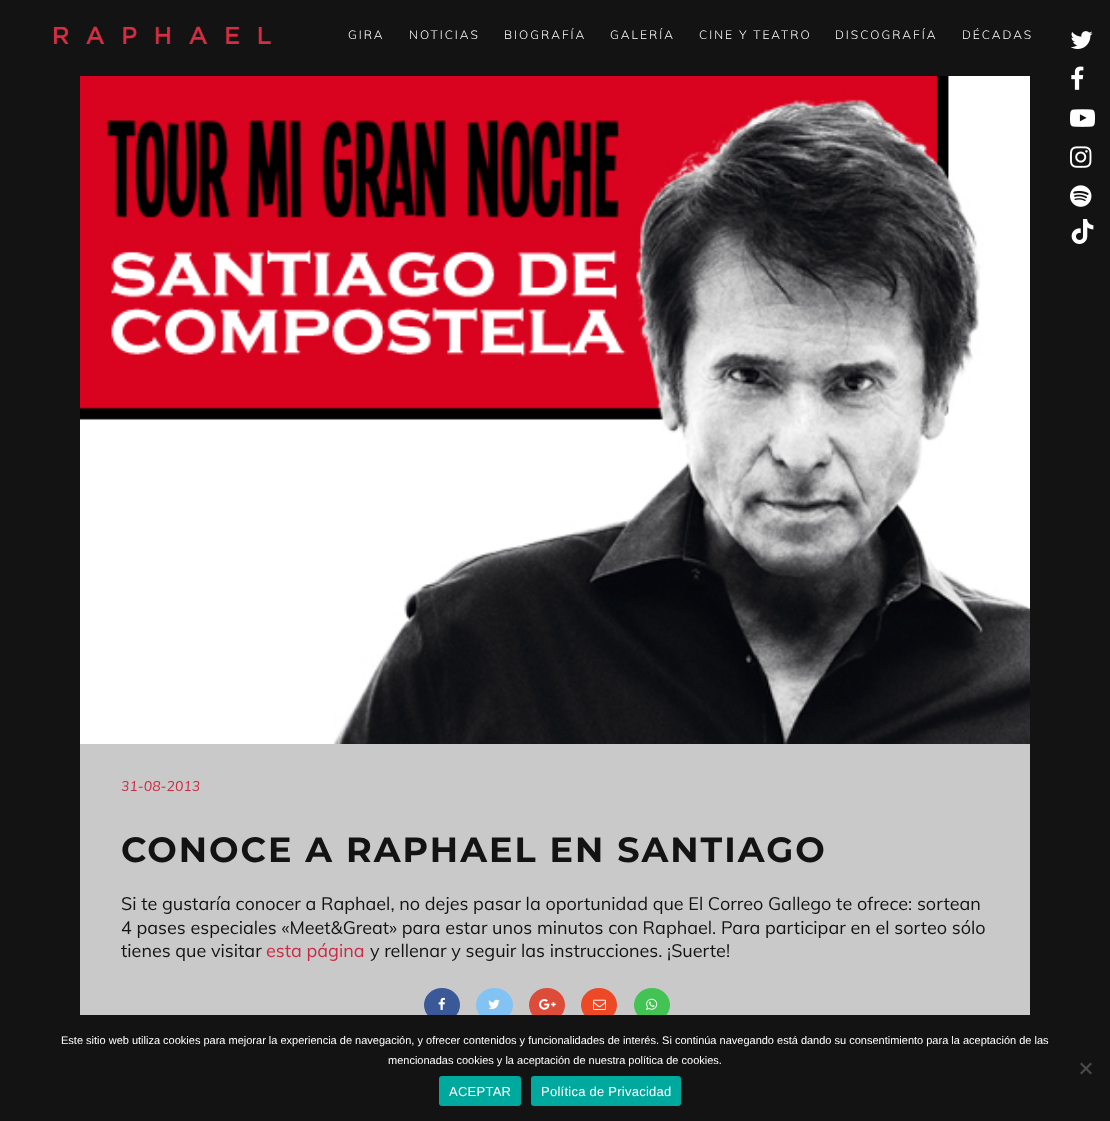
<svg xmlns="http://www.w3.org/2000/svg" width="1110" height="1121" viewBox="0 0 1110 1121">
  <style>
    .t1 { font: 300 12px Muli; letter-spacing: 2px; fill: #fff; }
    .t2 { font: italic 14px Muli; fill: #cb2a42; }
    .t3 { font: bold 35px Montserrat; letter-spacing: 2px; fill: #131314; }
    .t4 { font: 18px Muli; fill: #131314; }
    .t5 { font: 18px Muli; fill: #cb2a42; }
    .t6 { font: 11px Liberation Sans; fill: #fff; }
    .t7 { font: 13px Liberation Sans; letter-spacing: 0.25px; fill: #fff; }
  </style>
  <rect width="100%" height="100%" fill="#131314"/>
  <image x="53" y="26" width="219" height="18" href="images/1.png"/>
  <text x="348" y="39" class="t1">GIRA</text>
  <text x="409" y="39" class="t1">NOTICIAS</text>
  <text x="504" y="39" class="t1">BIOGRAFÍA</text>
  <text x="610" y="39" class="t1">GALERÍA</text>
  <text x="699" y="39" class="t1">CINE Y TEATRO</text>
  <text x="835" y="39" class="t1">DISCOGRAFÍA</text>
  <text x="962" y="39" class="t1">DÉCADAS</text>
  <image x="1070" y="31" width="23" height="18" href="images/2.png"/>
  <image x="1071" y="66" width="13" height="24" href="images/3.png"/>
  <image x="1070" y="109" width="25" height="18" href="images/4.png"/>
  <image x="1070" y="146" width="22" height="22" href="images/5.png"/>
  <image x="1070" y="185" width="22" height="22" href="images/6.png"/>
  <image x="1071" y="219" width="23" height="25" href="images/7.png"/>
  <image x="80" y="76" width="950" height="668" href="images/8.png"/>
  <rect x="80" y="744" width="950" height="271" fill="#c9c9c9"/>
  <text x="121" y="791" class="t2">31-08-2013</text>
  <text x="121" y="862" class="t3">CONOCE A RAPHAEL EN SANTIAGO</text>
  <text x="121" y="910" class="t4">Si te gustaría conocer a Raphael, no dejes pasar la oportunidad que El Correo Gallego te ofrece: sortean</text>
  <text x="121" y="934" class="t4">4 pases especiales «Meet&amp;Great» para estar unos minutos con Raphael. Para participar en el sorteo sólo</text>
  <text x="121" y="957" class="t4">tienes que visitar</text>
  <text x="266" y="957" class="t5">esta página</text>
  <text x="370" y="957" class="t4">y rellenar y seguir las instrucciones. ¡Suerte!</text>
  <ellipse cx="442" cy="1005" rx="18" ry="17" fill="#3b5998"/>
  <image x="438" y="997" width="7" height="13" href="images/9.png"/>
  <ellipse cx="494.5" cy="1005" rx="18.5" ry="17" fill="#83c3f3"/>
  <image x="488" y="999" width="12" height="10" href="images/10.png"/>
  <ellipse cx="547" cy="1005" rx="18" ry="17" fill="#dd4b39"/>
  <image x="539" y="999" width="17" height="11" href="images/11.png"/>
  <ellipse cx="599" cy="1005" rx="18" ry="17" fill="#ed4926"/>
  <image x="593" y="999" width="13" height="11" href="images/12.png"/>
  <ellipse cx="652" cy="1005" rx="18" ry="17" fill="#43c353"/>
  <image x="646" y="998" width="12" height="12" href="images/13.png"/>
  <rect x="427" y="1015" width="240" height="7" fill="#131314"/>
  <text x="61" y="1044" class="t6">Este sitio web utiliza cookies para mejorar la experiencia de navegación, y ofrecer contenidos y funcionalidades de interés. Si continúa navegando está dando su consentimiento para la aceptación de las</text>
  <text x="388" y="1064" class="t6">mencionadas cookies y la aceptación de nuestra política de cookies.</text>
  <path d="M1090.5 1062.5L1092 1064L1081.5 1074.5L1080 1073Z" fill="#4a4a4a"/>
  <path d="M1080 1064L1081.5 1062.5L1092 1073L1090.5 1074.5Z" fill="#4a4a4a"/>
  <rect x="439" y="1076" width="82" height="30" rx="3" fill="#00a99d"/>
  <text x="449" y="1096" class="t7">ACEPTAR</text>
  <rect x="531" y="1076" width="150" height="30" rx="3" fill="#00a99d"/>
  <text x="541" y="1096" class="t7">Política de Privacidad</text>
</svg>
